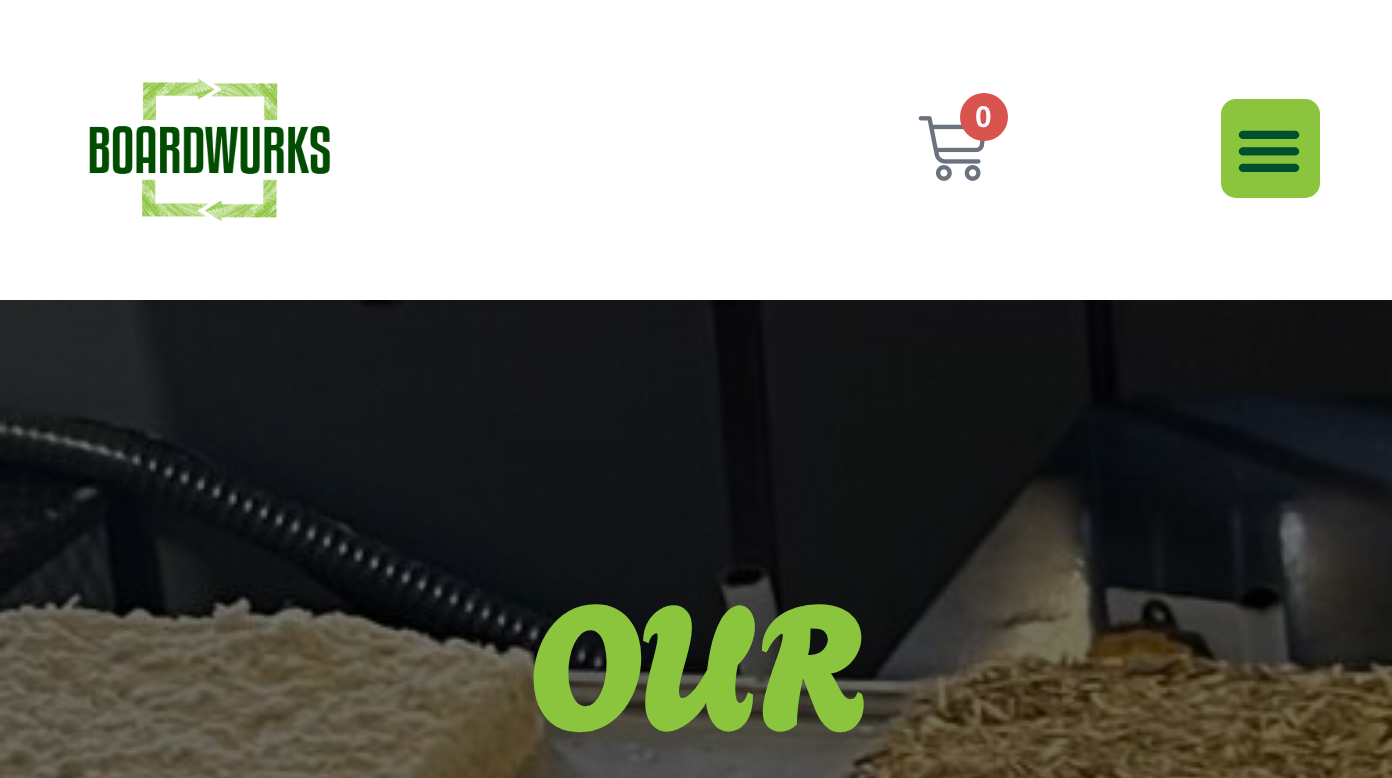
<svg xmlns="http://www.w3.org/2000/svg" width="1392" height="778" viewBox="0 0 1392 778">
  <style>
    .t1 { font: bold 30px Liberation Sans; fill: #fff; }
    .t2 { font: bold 168px Agbalumo; fill: #8bc53d; }
  </style>
  <rect width="100%" height="100%" fill="#fff"/>
  <image x="89" y="78" width="242" height="144" href="images/1.png"/>
  <image x="918" y="116" width="67" height="65" href="images/2.png"/>
  <circle cx="984" cy="117" r="24" fill="#d9534f"/>
  <text x="975" y="127" class="t1">0</text>
  <rect x="1221" y="99" width="99" height="99" rx="15" fill="#8bc53d"/>
  <image x="1238" y="130" width="62" height="42" href="images/3.png"/>
  <image x="0" y="300" width="1392" height="478" href="images/4.png"/>
  <text x="527" y="731" class="t2">OUR</text>
</svg>
